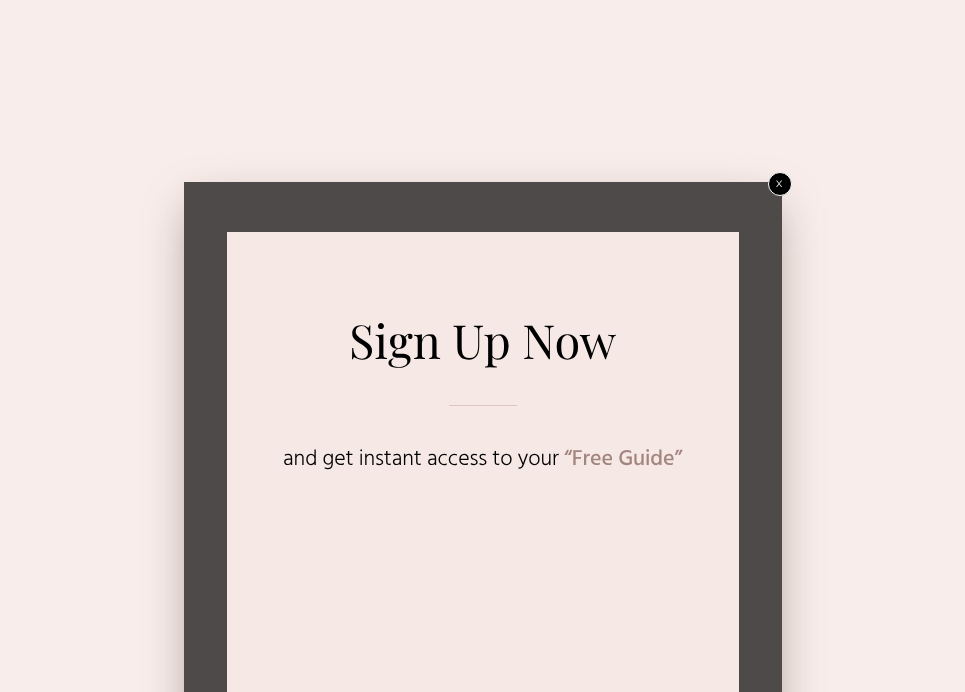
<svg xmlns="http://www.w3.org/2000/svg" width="965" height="692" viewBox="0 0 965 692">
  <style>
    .t1 { font: 300 12px Manrope; letter-spacing: -0.1px; fill: #fff; }
    .t2 { font: 47px Playfair Display; letter-spacing: -0.1px; fill: #000; }
    .t3 { font: 300 22px Hind; letter-spacing: -0.1px; fill: #000; }
    .t4 { font: 500 22px Hind; letter-spacing: -0.1px; fill: #a1857e; }
  </style>
  <rect width="100%" height="100%" fill="#f8edea"/>
  <rect x="193" y="208" width="580" height="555" fill="#6d56509c" filter="blur(23.5px)"/>
  <rect x="184" y="182" width="598" height="510" fill="#4d4a49"/>
  <circle cx="780" cy="184" r="11.5" fill="#000" stroke="#fff"/>
  <text x="776" y="187" class="t1">x</text>
  <rect x="227" y="232" width="512" height="460" fill="#f6e8e5"/>
  <text x="349" y="359" class="t2">Sign Up Now</text>
  <rect x="449" y="405" width="68" height="1" fill="#dec5c0"/>
  <text x="283" y="465" class="t3">and get instant access to your</text>
  <text x="564" y="465" class="t4">“Free Guide”</text>
</svg>
